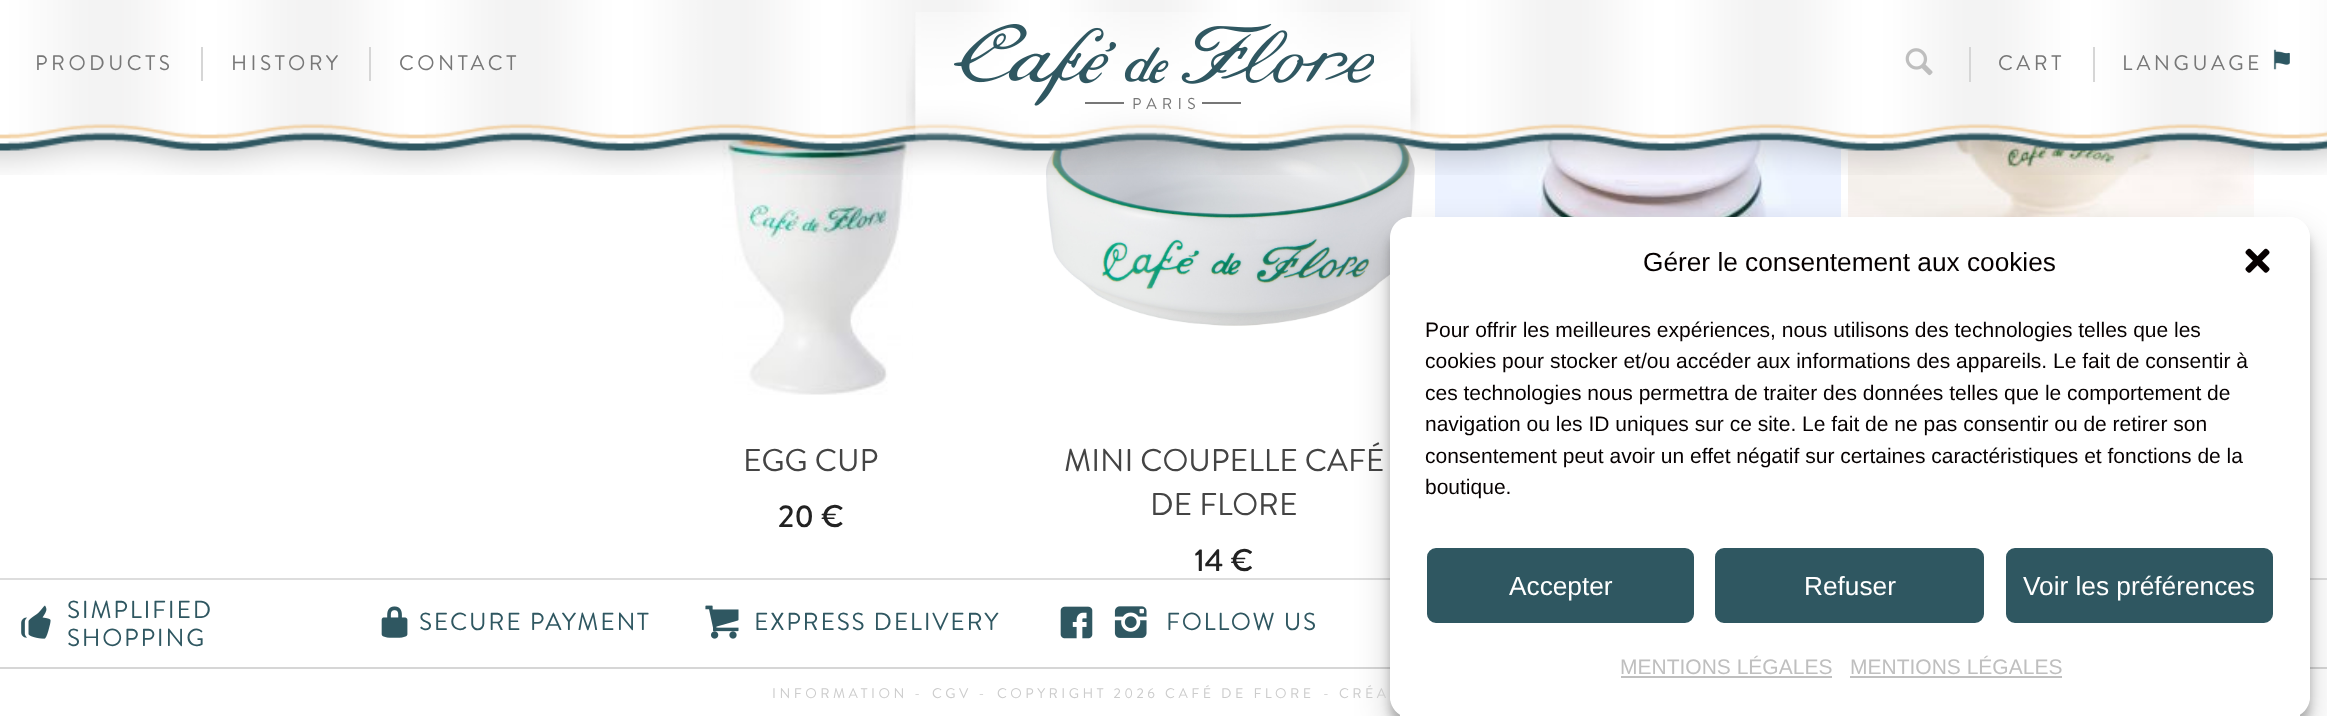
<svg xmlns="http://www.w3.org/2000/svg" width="2327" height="716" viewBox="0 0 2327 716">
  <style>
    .t1 { font: 21px Brandon Grotesque; letter-spacing: 3.5px; fill: #777; }
    .t2 { font: 15.75px Brandon Grotesque; letter-spacing: 5.25px; fill: #777; }
    .t3 { font: 31.5px Brandon Grotesque; fill: #444; }
    .t4 { font: 500 31.5px Brandon Grotesque; fill: #222; }
    .t5 { font: 26.25px Liberation Sans; fill: #060000; }
    .t6 { font: 21px Liberation Sans; fill: #060000; }
    .t7 { font: 26.25px Liberation Sans; fill: #fff; }
    .t8 { font: 21px Liberation Sans; fill: #bfbfbf; }
    .t9 { font: 24.5px Brandon Grotesque; letter-spacing: 1.75px; fill: #2f5761; }
    .t10 { font: 14px Brandon Grotesque; letter-spacing: 3.5px; fill: #ccc; }
  </style>
  <defs>
    <clipPath id="clip1"><path d="M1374 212H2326V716H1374ZM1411 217H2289C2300.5 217 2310 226.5 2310 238V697C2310 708.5 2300.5 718 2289 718H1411C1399.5 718 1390 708.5 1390 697V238C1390 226.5 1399.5 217 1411 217Z" clip-rule="evenodd"/></clipPath>
    <clipPath id="clip2"><path d="M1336 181H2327V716H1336ZM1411 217H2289C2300.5 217 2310 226.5 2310 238V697C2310 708.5 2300.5 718 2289 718H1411C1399.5 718 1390 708.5 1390 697V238C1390 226.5 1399.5 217 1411 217Z" clip-rule="evenodd"/></clipPath>
  </defs>
  <rect width="100%" height="100%" fill="#fff"/>
  <image x="1435" y="139" width="406" height="78" href="images/6.png"/>
  <image x="1848" y="139" width="406" height="78" href="images/7.png"/>
  <image x="722" y="139" width="191" height="256" href="images/8.png"/>
  <image x="1046" y="139" width="369" height="187" href="images/9.png"/>
  <image x="0" y="0" width="2327" height="175" href="images/1.png"/>
  <text x="35" y="70" class="t1">PRODUCTS</text>
  <rect x="201" y="47" width="2" height="34" fill="#d6d6d6"/>
  <text x="231" y="70" class="t1">HISTORY</text>
  <rect x="369" y="47" width="2" height="34" fill="#d6d6d6"/>
  <text x="399" y="70" class="t1">CONTACT</text>
  <rect x="1969" y="47" width="2" height="35" fill="#d6d6d6"/>
  <image x="1905" y="48" width="28" height="28" href="images/2.png"/>
  <rect x="2093" y="47" width="2" height="35" fill="#d6d6d6"/>
  <text x="1998" y="70" class="t1">CART</text>
  <text x="2122" y="70" class="t1">LANGUAGE</text>
  <image x="2273" y="49" width="17" height="21" href="images/3.png"/>
  <image x="906" y="12" width="514" height="131" href="images/4.png"/>
  <image x="954" y="23" width="420" height="83" href="images/5.png"/>
  <rect x="1085" y="102" width="39" height="2" fill="#777"/>
  <text x="1132" y="109" class="t2">PARIS</text>
  <rect x="1202" y="102" width="39" height="2" fill="#777"/>
  <text x="743" y="471" class="t3">EGG CUP</text>
  <text x="778" y="527" class="t4">20 €</text>
  <text x="1064" y="471" class="t3">MINI COUPELLE CAFÉ</text>
  <text x="1150" y="515" class="t3">DE FLORE</text>
  <text x="1194" y="571" class="t4">14 €</text>
  <rect x="0" y="578" width="2327" height="2" fill="#ddd"/>
  <rect x="0" y="667" width="2327" height="2" fill="#d6d6d6"/>
  <g clip-path="url(#clip1)">
    <rect x="1390" y="228" width="920" height="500" rx="21" fill="#0000003b" filter="blur(5px)"/>
  </g>
  <g clip-path="url(#clip2)">
    <rect x="1390" y="235" width="920" height="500" rx="21" fill="#00000030" filter="blur(17.5px)"/>
  </g>
  <path d="M1410 217H2289C2301 217 2310 226 2310 238V696C2310 706 2301 714 2289 714H1410C1399 714 1390 706 1390 696V238C1390 226 1399 217 1410 217Z" fill="#fff"/>
  <rect x="1400" y="714" width="900" height="2" fill="#fff"/>
  <text x="1643" y="271" class="t5">Gérer le consentement aux cookies</text>
  <image x="2245" y="248" width="25" height="25" href="images/10.png"/>
  <text x="1425" y="337" class="t6">Pour offrir les meilleures expériences, nous utilisons des technologies telles que les</text>
  <text x="1425" y="368" class="t6">cookies pour stocker et/ou accéder aux informations des appareils. Le fait de consentir à</text>
  <text x="1425" y="400" class="t6">ces technologies nous permettra de traiter des données telles que le comportement de</text>
  <text x="1425" y="431" class="t6">navigation ou les ID uniques sur ce site. Le fait de ne pas consentir ou de retirer son</text>
  <text x="1425" y="463" class="t6">consentement peut avoir un effet négatif sur certaines caractéristiques et fonctions de la</text>
  <text x="1425" y="494" class="t6">boutique.</text>
  <rect x="1426" y="547" width="269" height="77" rx="10" fill="#2f5761" stroke="#fff" stroke-width="2"/>
  <text x="1509" y="595" class="t7">Accepter</text>
  <rect x="1714" y="547" width="271" height="77" rx="10" fill="#2f5761" stroke="#fff" stroke-width="2"/>
  <text x="1804" y="595" class="t7">Refuser</text>
  <rect x="2005" y="547" width="269" height="77" rx="10" fill="#2f5761" stroke="#fff" stroke-width="2"/>
  <text x="2023" y="595" class="t7">Voir les préférences</text>
  <text x="1620" y="674" class="t8">MENTIONS LÉGALES</text>
  <rect x="1621" y="676" width="211" height="2" fill="#bfbfbf"/>
  <text x="1850" y="674" class="t8">MENTIONS LÉGALES</text>
  <rect x="1850" y="676" width="212" height="2" fill="#bfbfbf"/>
  <image x="21" y="605" width="30" height="34" href="images/11.png"/>
  <text x="67" y="618" class="t9">SIMPLIFIED</text>
  <text x="67" y="646" class="t9">SHOPPING</text>
  <image x="381" y="606" width="27" height="32" href="images/12.png"/>
  <text x="419" y="630" class="t9">SECURE PAYMENT</text>
  <image x="705" y="605" width="34" height="34" href="images/13.png"/>
  <text x="754" y="630" class="t9">EXPRESS DELIVERY</text>
  <image x="1060" y="606" width="33" height="33" href="images/14.png"/>
  <image x="1114" y="606" width="33" height="32" href="images/15.png"/>
  <text x="1166" y="630" class="t9">FOLLOW US</text>
  <text x="772" y="698" class="t10">INFORMATION -</text>
  <text x="932" y="698" class="t10">CGV -</text>
  <text x="997" y="698" class="t10">COPYRIGHT 2026 CAFÉ DE FLORE</text>
  <text x="1323" y="698" class="t10">- CRÉA</text>
</svg>
